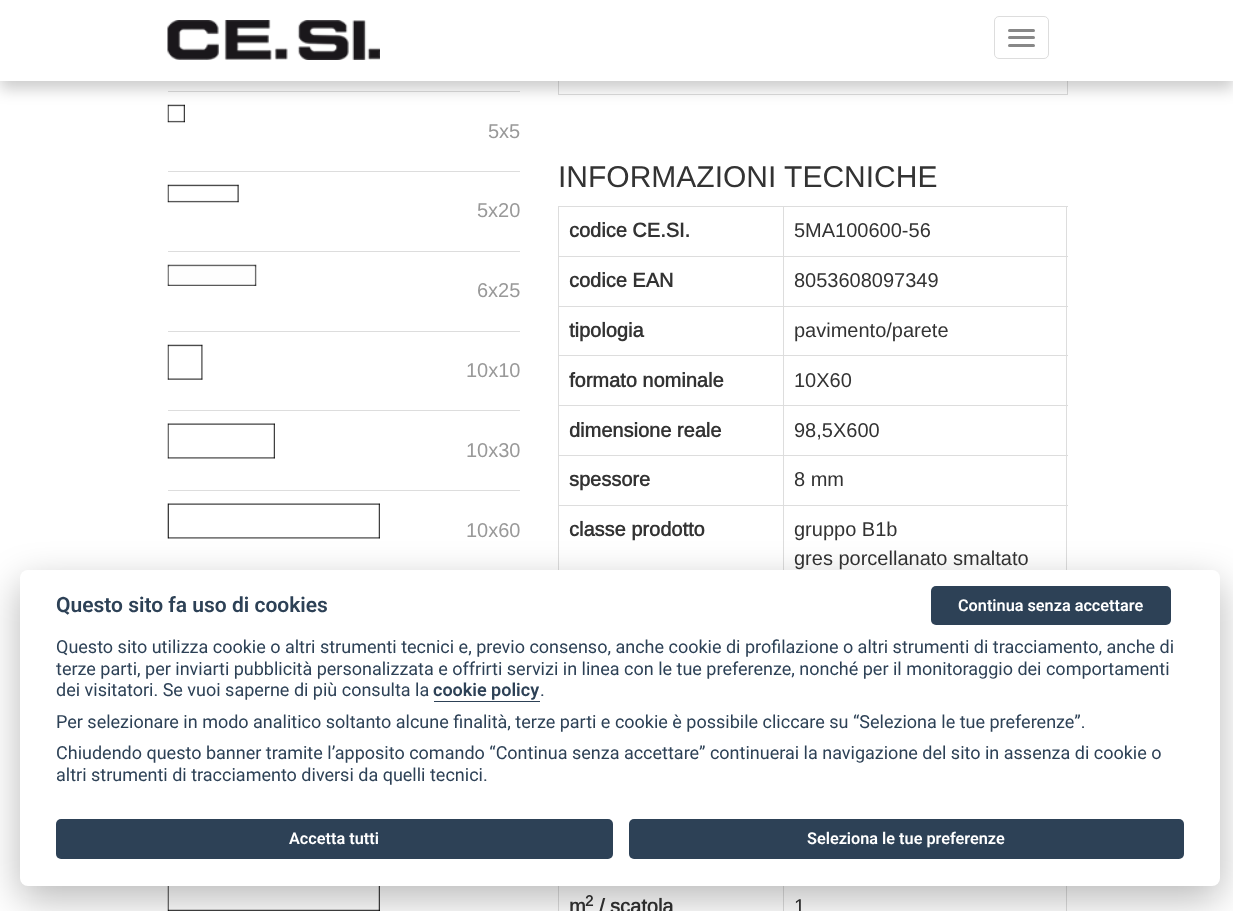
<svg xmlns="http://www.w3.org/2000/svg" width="1233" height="911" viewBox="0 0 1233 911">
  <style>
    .t1 { font: 20px Arimo; fill: #999; }
    .t2 { font: 30px Arimo; fill: #333; }
    .t3 { font: bold 20px Arimo; fill: #333; }
    .t4 { font: 20px Arimo; fill: #333; }
    .t5 { font: bold 15px Arimo; fill: #333; }
    .t6 { font: 600 21px Roboto; fill: #2d4156; }
    .t7 { font: 600 16.25px Roboto; fill: #fff; }
    .t8 { font: 18px Roboto; fill: #2d4156; }
    .t9 { font: 600 18px Roboto; fill: #2d4156; }
  </style>
  <rect width="100%" height="100%" fill="#fff"/>
  <rect x="168" y="91" width="352" height="1" fill="#ddd"/>
  <image x="167" y="104" width="18" height="19" href="images/2.png"/>
  <rect x="558.5" y="-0.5" width="509" height="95" fill="none" stroke="#ddd"/>
  <rect x="0" y="8" width="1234" height="81" fill="#00000033" filter="blur(7.5px)"/>
  <rect x="0" y="0" width="1233" height="81" fill="#fff"/>
  <image x="167" y="20" width="213" height="40" href="images/1.png"/>
  <rect x="994.5" y="16.5" width="54" height="42" rx="4.5" fill="none" stroke="#ddd"/>
  <rect x="1008" y="29" width="27" height="3" rx="1.5" fill="#888"/>
  <rect x="1008" y="36" width="27" height="3" rx="1.5" fill="#888"/>
  <rect x="1008" y="44" width="27" height="3" rx="1.5" fill="#888"/>
  <text x="488" y="138" class="t1">5x5</text>
  <rect x="168" y="171" width="352" height="1" fill="#ddd"/>
  <image x="167" y="184" width="72" height="19" href="images/3.png"/>
  <text x="477" y="217" class="t1">5x20</text>
  <rect x="168" y="251" width="352" height="1" fill="#ddd"/>
  <image x="167" y="264" width="90" height="22" href="images/4.png"/>
  <text x="477" y="297" class="t1">6x25</text>
  <rect x="168" y="331" width="352" height="1" fill="#ddd"/>
  <image x="167" y="344" width="36" height="36" href="images/5.png"/>
  <text x="466" y="377" class="t1">10x10</text>
  <rect x="168" y="410" width="352" height="1" fill="#ddd"/>
  <image x="167" y="423" width="108" height="36" href="images/6.png"/>
  <text x="466" y="457" class="t1">10x30</text>
  <rect x="168" y="490" width="352" height="1" fill="#ddd"/>
  <image x="167" y="503" width="213" height="36" href="images/7.png"/>
  <text x="466" y="537" class="t1">10x60</text>
  <image x="167" y="886" width="213" height="25" href="images/8.png"/>
  <text x="558" y="187" class="t2">INFORMAZIONI TECNICHE</text>
  <rect x="558" y="206" width="510" height="1" fill="#ddd"/>
  <rect x="1066" y="206" width="1" height="705" fill="#ddd"/>
  <rect x="558" y="206" width="1" height="705" fill="#ddd"/>
  <text x="569" y="237" class="t3">codice CE.SI.</text>
  <rect x="783" y="256" width="285" height="1" fill="#ddd"/>
  <rect x="783" y="306" width="285" height="1" fill="#ddd"/>
  <rect x="783" y="355" width="285" height="1" fill="#ddd"/>
  <rect x="783" y="405" width="285" height="1" fill="#ddd"/>
  <rect x="783" y="455" width="285" height="1" fill="#ddd"/>
  <rect x="783" y="505" width="285" height="1" fill="#ddd"/>
  <rect x="783" y="505" width="1" height="65" fill="#ddd"/>
  <rect x="558" y="505" width="226" height="1" fill="#ddd"/>
  <rect x="783" y="455" width="1" height="51" fill="#ddd"/>
  <rect x="558" y="455" width="226" height="1" fill="#ddd"/>
  <rect x="783" y="405" width="1" height="51" fill="#ddd"/>
  <rect x="558" y="405" width="226" height="1" fill="#ddd"/>
  <rect x="783" y="355" width="1" height="51" fill="#ddd"/>
  <rect x="558" y="355" width="226" height="1" fill="#ddd"/>
  <rect x="783" y="306" width="1" height="50" fill="#ddd"/>
  <rect x="558" y="306" width="226" height="1" fill="#ddd"/>
  <rect x="783" y="256" width="1" height="52" fill="#ddd"/>
  <rect x="558" y="256" width="226" height="1" fill="#ddd"/>
  <rect x="783" y="206" width="1" height="52" fill="#ddd"/>
  <text x="794" y="237" class="t4">5MA100600-56</text>
  <text x="569" y="287" class="t3">codice EAN</text>
  <text x="794" y="287" class="t4">8053608097349</text>
  <text x="569" y="337" class="t3">tipologia</text>
  <text x="794" y="337" class="t4">pavimento/parete</text>
  <text x="569" y="387" class="t3">formato nominale</text>
  <text x="794" y="387" class="t4">10X60</text>
  <text x="569" y="437" class="t3">dimensione reale</text>
  <text x="794" y="437" class="t4">98,5X600</text>
  <text x="569" y="486" class="t3">spessore</text>
  <text x="794" y="486" class="t4">8 mm</text>
  <text x="569" y="536" class="t3">classe prodotto</text>
  <text x="794" y="536" class="t4">gruppo B1b</text>
  <text x="794" y="565" class="t4">gres porcellanato smaltato</text>
  <text x="569" y="913" class="t3">m</text>
  <text x="585" y="906" class="t5">2</text>
  <text x="599" y="913" class="t3">/ scatola</text>
  <rect x="783" y="883" width="1" height="28" fill="#ddd"/>
  <text x="794" y="913" class="t4">1</text>
  <rect x="20" y="583" width="1200" height="316" rx="8" fill="#02020347" filter="blur(19px)"/>
  <rect x="20" y="570" width="1200" height="316" rx="8" fill="#fff"/>
  <text x="56" y="612" class="t6">Questo sito fa uso di cookies</text>
  <rect x="931" y="586" width="240" height="39" rx="5" fill="#2d4156"/>
  <text x="958" y="611" class="t7">Continua senza accettare</text>
  <text x="56" y="653" class="t8">Questo sito utilizza cookie o altri strumenti tecnici e, previo consenso, anche cookie di profilazione o altri strumenti di tracciamento, anche di</text>
  <text x="56" y="675" class="t8">terze parti, per inviarti pubblicità personalizzata e offrirti servizi in linea con le tue preferenze, nonché per il monitoraggio dei comportamenti</text>
  <text x="56" y="696" class="t8">dei visitatori. Se vuoi saperne di più consulta la</text>
  <text x="433" y="696" class="t9">cookie policy</text>
  <rect x="434" y="701" width="106" height="1" fill="#2d4156"/>
  <text x="540" y="696" class="t8">.</text>
  <text x="56" y="728" class="t8">Per selezionare in modo analitico soltanto alcune finalità, terze parti e cookie è possibile cliccare su “Seleziona le tue preferenze”.</text>
  <text x="56" y="759" class="t8">Chiudendo questo banner tramite l’apposito comando “Continua senza accettare” continuerai la navigazione del sito in assenza di cookie o</text>
  <text x="56" y="781" class="t8">altri strumenti di tracciamento diversi da quelli tecnici.</text>
  <rect x="56" y="819" width="557" height="40" rx="5" fill="#2d4156"/>
  <text x="289" y="844" class="t7">Accetta tutti</text>
  <rect x="629" y="819" width="555" height="40" rx="5" fill="#2d4156"/>
  <text x="807" y="844" class="t7">Seleziona le tue preferenze</text>
</svg>
